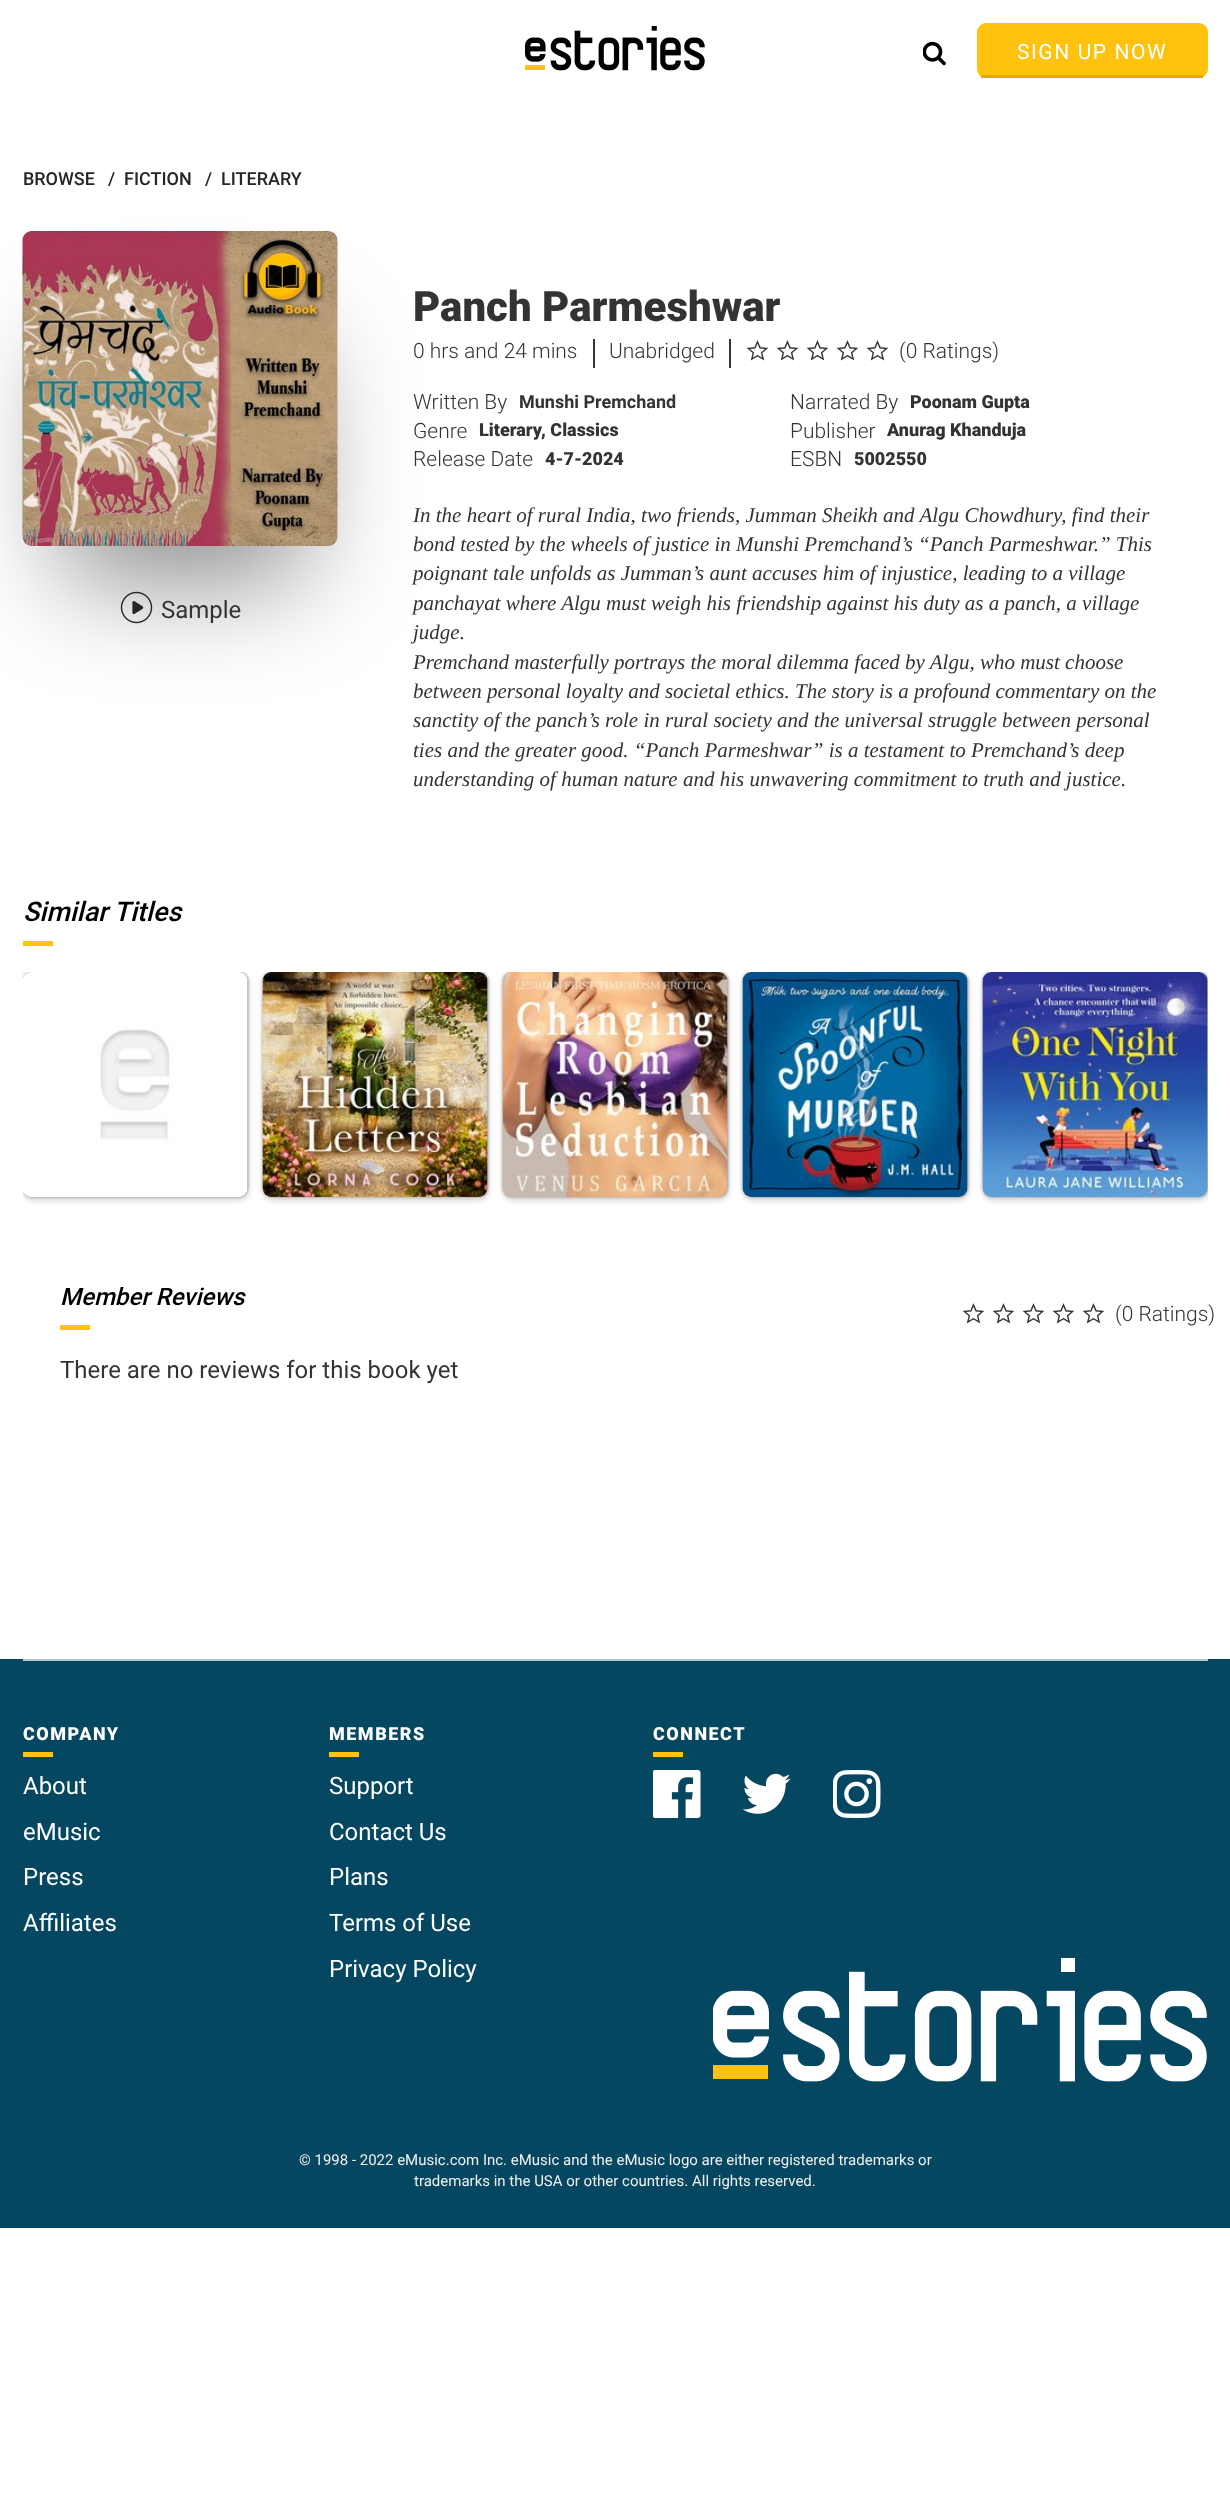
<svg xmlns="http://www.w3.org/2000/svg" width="1230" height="2516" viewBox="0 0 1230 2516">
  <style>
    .t1 { font: 21px Roboto; letter-spacing: 1.6px; fill: #fff; }
    .t2 { font: 500 18px Roboto; fill: #262626; }
    .t3 { font: 24px Roboto; fill: #333; }
    .t4 { font: 900 42px Roboto; fill: #333; }
    .t5 { font: 300 21px Roboto; fill: #333; }
    .t6 { font: bold 18px Roboto; fill: #333; }
    .t7 { font: 900 18px Roboto; fill: #333; }
    .t8 { font: italic 21px Liberation Serif; fill: #333; }
    .t9 { font: italic 500 27px Roboto; fill: #000; }
    .t10 { font: italic 500 24px Roboto; fill: #000; }
    .t11 { font: 900 18px Roboto; letter-spacing: 1.5px; fill: #fff; }
    .t12 { font: 24px Roboto; fill: #fff; }
    .t13 { font: 15px Roboto; fill: #f1f1f1; }
  </style>
  <defs>
    <clipPath id="clip1"><rect x="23" y="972" width="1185" height="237"/></clipPath>
  </defs>
  <rect width="100%" height="100%" fill="#fff"/>
  <image x="525" y="26" width="180" height="45" href="images/1.png"/>
  <image x="923" y="41" width="23" height="25" href="images/2.png"/>
  <rect x="977" y="23" width="231" height="55" rx="9" fill="#ffc20e"/>
  <rect x="981" y="75" width="222" height="3" fill="#e3ab00"/>
  <text x="1017" y="59" class="t1">SIGN UP NOW</text>
  <text x="23" y="185" class="t2">BROWSE</text>
  <text x="108" y="185" class="t2">/</text>
  <text x="124" y="185" class="t2">FICTION</text>
  <text x="205" y="185" class="t2">/</text>
  <text x="221" y="185" class="t2">LITERARY</text>
  <rect x="63" y="341" width="240" height="240" fill="#00000073" filter="blur(54px)"/>
  <image x="22" y="231" width="316" height="315" href="images/3.png"/>
  <image x="120" y="591" width="33" height="33" href="images/4.png"/>
  <text x="161" y="618" class="t3">Sample</text>
  <text x="413" y="321" class="t4">Panch Parmeshwar</text>
  <text x="413" y="358" class="t5">0 hrs and 24 mins</text>
  <rect x="593" y="339" width="2" height="29" fill="#333"/>
  <text x="609" y="358" class="t5">Unabridged</text>
  <rect x="729" y="339" width="2" height="29" fill="#333"/>
  <image x="746" y="340" width="23" height="21" href="images/5.png"/>
  <image x="776" y="340" width="23" height="21" href="images/5.png"/>
  <image x="806" y="340" width="23" height="21" href="images/5.png"/>
  <image x="836" y="340" width="23" height="21" href="images/5.png"/>
  <image x="866" y="340" width="23" height="21" href="images/5.png"/>
  <text x="899" y="358" class="t5">(0 Ratings)</text>
  <text x="413" y="409" class="t5">Written By</text>
  <text x="519" y="408" class="t6">Munshi Premchand</text>
  <text x="790" y="409" class="t5">Narrated By</text>
  <text x="910" y="408" class="t7">Poonam Gupta</text>
  <text x="413" y="438" class="t5">Genre</text>
  <text x="479" y="436" class="t7">Literary</text>
  <text x="541" y="436" class="t7">, Classics</text>
  <text x="790" y="438" class="t5">Publisher</text>
  <text x="887" y="436" class="t7">Anurag Khanduja</text>
  <text x="413" y="466" class="t5">Release Date</text>
  <text x="545" y="465" class="t7">4-7-2024</text>
  <text x="790" y="466" class="t5">ESBN</text>
  <text x="854" y="465" class="t7">5002550</text>
  <text x="413" y="522" class="t8">In the heart of rural India, two friends, Jumman Sheikh and Algu Chowdhury, find their</text>
  <text x="413" y="551" class="t8">bond tested by the wheels of justice in Munshi Premchand’s “Panch Parmeshwar.” This</text>
  <text x="413" y="580" class="t8">poignant tale unfolds as Jumman’s aunt accuses him of injustice, leading to a village</text>
  <text x="413" y="610" class="t8">panchayat where Algu must weigh his friendship against his duty as a panch, a village</text>
  <text x="413" y="639" class="t8">judge.</text>
  <text x="413" y="669" class="t8">Premchand masterfully portrays the moral dilemma faced by Algu, who must choose</text>
  <text x="413" y="698" class="t8">between personal loyalty and societal ethics. The story is a profound commentary on the</text>
  <text x="413" y="727" class="t8">sanctity of the panch’s role in rural society and the universal struggle between personal</text>
  <text x="413" y="757" class="t8">ties and the greater good. “Panch Parmeshwar” is a testament to Premchand’s deep</text>
  <text x="413" y="786" class="t8">understanding of human nature and his unwavering commitment to truth and justice.</text>
  <text x="23" y="921" class="t9">Similar Titles</text>
  <rect x="23" y="941" width="30" height="5" fill="#ffc20e"/>
  <g clip-path="url(#clip1)">
    <rect x="23" y="972" width="225" height="225" rx="9" fill="#1b1b1b80" filter="blur(1.5px)"/>
    <rect x="23" y="975" width="225" height="225" rx="9" fill="#a5a5a580" filter="blur(3px)"/>
  </g>
  <image x="23" y="972" width="225" height="225" href="images/6.png"/>
  <g clip-path="url(#clip1)">
    <rect x="263" y="972" width="225" height="225" rx="9" fill="#1b1b1b80" filter="blur(1.5px)"/>
    <rect x="263" y="975" width="225" height="225" rx="9" fill="#a5a5a580" filter="blur(3px)"/>
  </g>
  <image x="262" y="972" width="226" height="225" href="images/7.png"/>
  <g clip-path="url(#clip1)">
    <rect x="503" y="972" width="225" height="225" rx="9" fill="#1b1b1b80" filter="blur(1.5px)"/>
    <rect x="503" y="975" width="225" height="225" rx="9" fill="#a5a5a580" filter="blur(3px)"/>
  </g>
  <image x="502" y="972" width="226" height="225" href="images/8.png"/>
  <g clip-path="url(#clip1)">
    <rect x="743" y="972" width="225" height="225" rx="9" fill="#1b1b1b80" filter="blur(1.5px)"/>
    <rect x="743" y="975" width="225" height="225" rx="9" fill="#a5a5a580" filter="blur(3px)"/>
  </g>
  <image x="742" y="972" width="226" height="225" href="images/9.png"/>
  <g clip-path="url(#clip1)">
    <rect x="983" y="972" width="225" height="225" rx="9" fill="#1b1b1b80" filter="blur(1.5px)"/>
    <rect x="983" y="975" width="225" height="225" rx="9" fill="#a5a5a580" filter="blur(3px)"/>
  </g>
  <image x="982" y="972" width="226" height="225" href="images/10.png"/>
  <text x="60" y="1305" class="t10">Member Reviews</text>
  <rect x="60" y="1325" width="30" height="5" fill="#ffc20e"/>
  <text x="60" y="1378" class="t3">There are no reviews for this book yet</text>
  <image x="962" y="1303" width="23" height="21" href="images/5.png"/>
  <image x="992" y="1303" width="23" height="21" href="images/5.png"/>
  <image x="1022" y="1303" width="23" height="21" href="images/5.png"/>
  <image x="1052" y="1303" width="23" height="21" href="images/5.png"/>
  <image x="1082" y="1303" width="23" height="21" href="images/5.png"/>
  <text x="1115" y="1321" class="t5">(0 Ratings)</text>
  <rect x="0" y="1659" width="1230" height="569" fill="#054760"/>
  <rect x="23" y="1659" width="1185" height="2" fill="#b4c8cf"/>
  <text x="23" y="1740" class="t11">COMPANY</text>
  <rect x="23" y="1752" width="30" height="5" fill="#ffc20e"/>
  <text x="23" y="1794" class="t12">About</text>
  <text x="23" y="1840" class="t12">eMusic</text>
  <text x="23" y="1885" class="t12">Press</text>
  <text x="23" y="1931" class="t12">Affiliates</text>
  <text x="329" y="1740" class="t11">MEMBERS</text>
  <rect x="329" y="1752" width="30" height="5" fill="#ffc20e"/>
  <text x="329" y="1794" class="t12">Support</text>
  <text x="329" y="1840" class="t12">Contact Us</text>
  <text x="329" y="1885" class="t12">Plans</text>
  <text x="329" y="1931" class="t12">Terms of Use</text>
  <text x="329" y="1977" class="t12">Privacy Policy</text>
  <text x="653" y="1740" class="t11">CONNECT</text>
  <rect x="653" y="1752" width="30" height="5" fill="#ffc20e"/>
  <image x="653" y="1770" width="48" height="48" href="images/11.png"/>
  <image x="743" y="1773" width="48" height="41" href="images/12.png"/>
  <image x="833" y="1770" width="48" height="48" href="images/13.png"/>
  <image x="713" y="1958" width="494" height="124" href="images/14.png"/>
  <text x="299" y="2165" class="t13">© 1998 - 2022 eMusic.com Inc. eMusic and the eMusic logo are either registered trademarks or</text>
  <text x="414" y="2186" class="t13">trademarks in the USA or other countries. All rights reserved.</text>
</svg>
